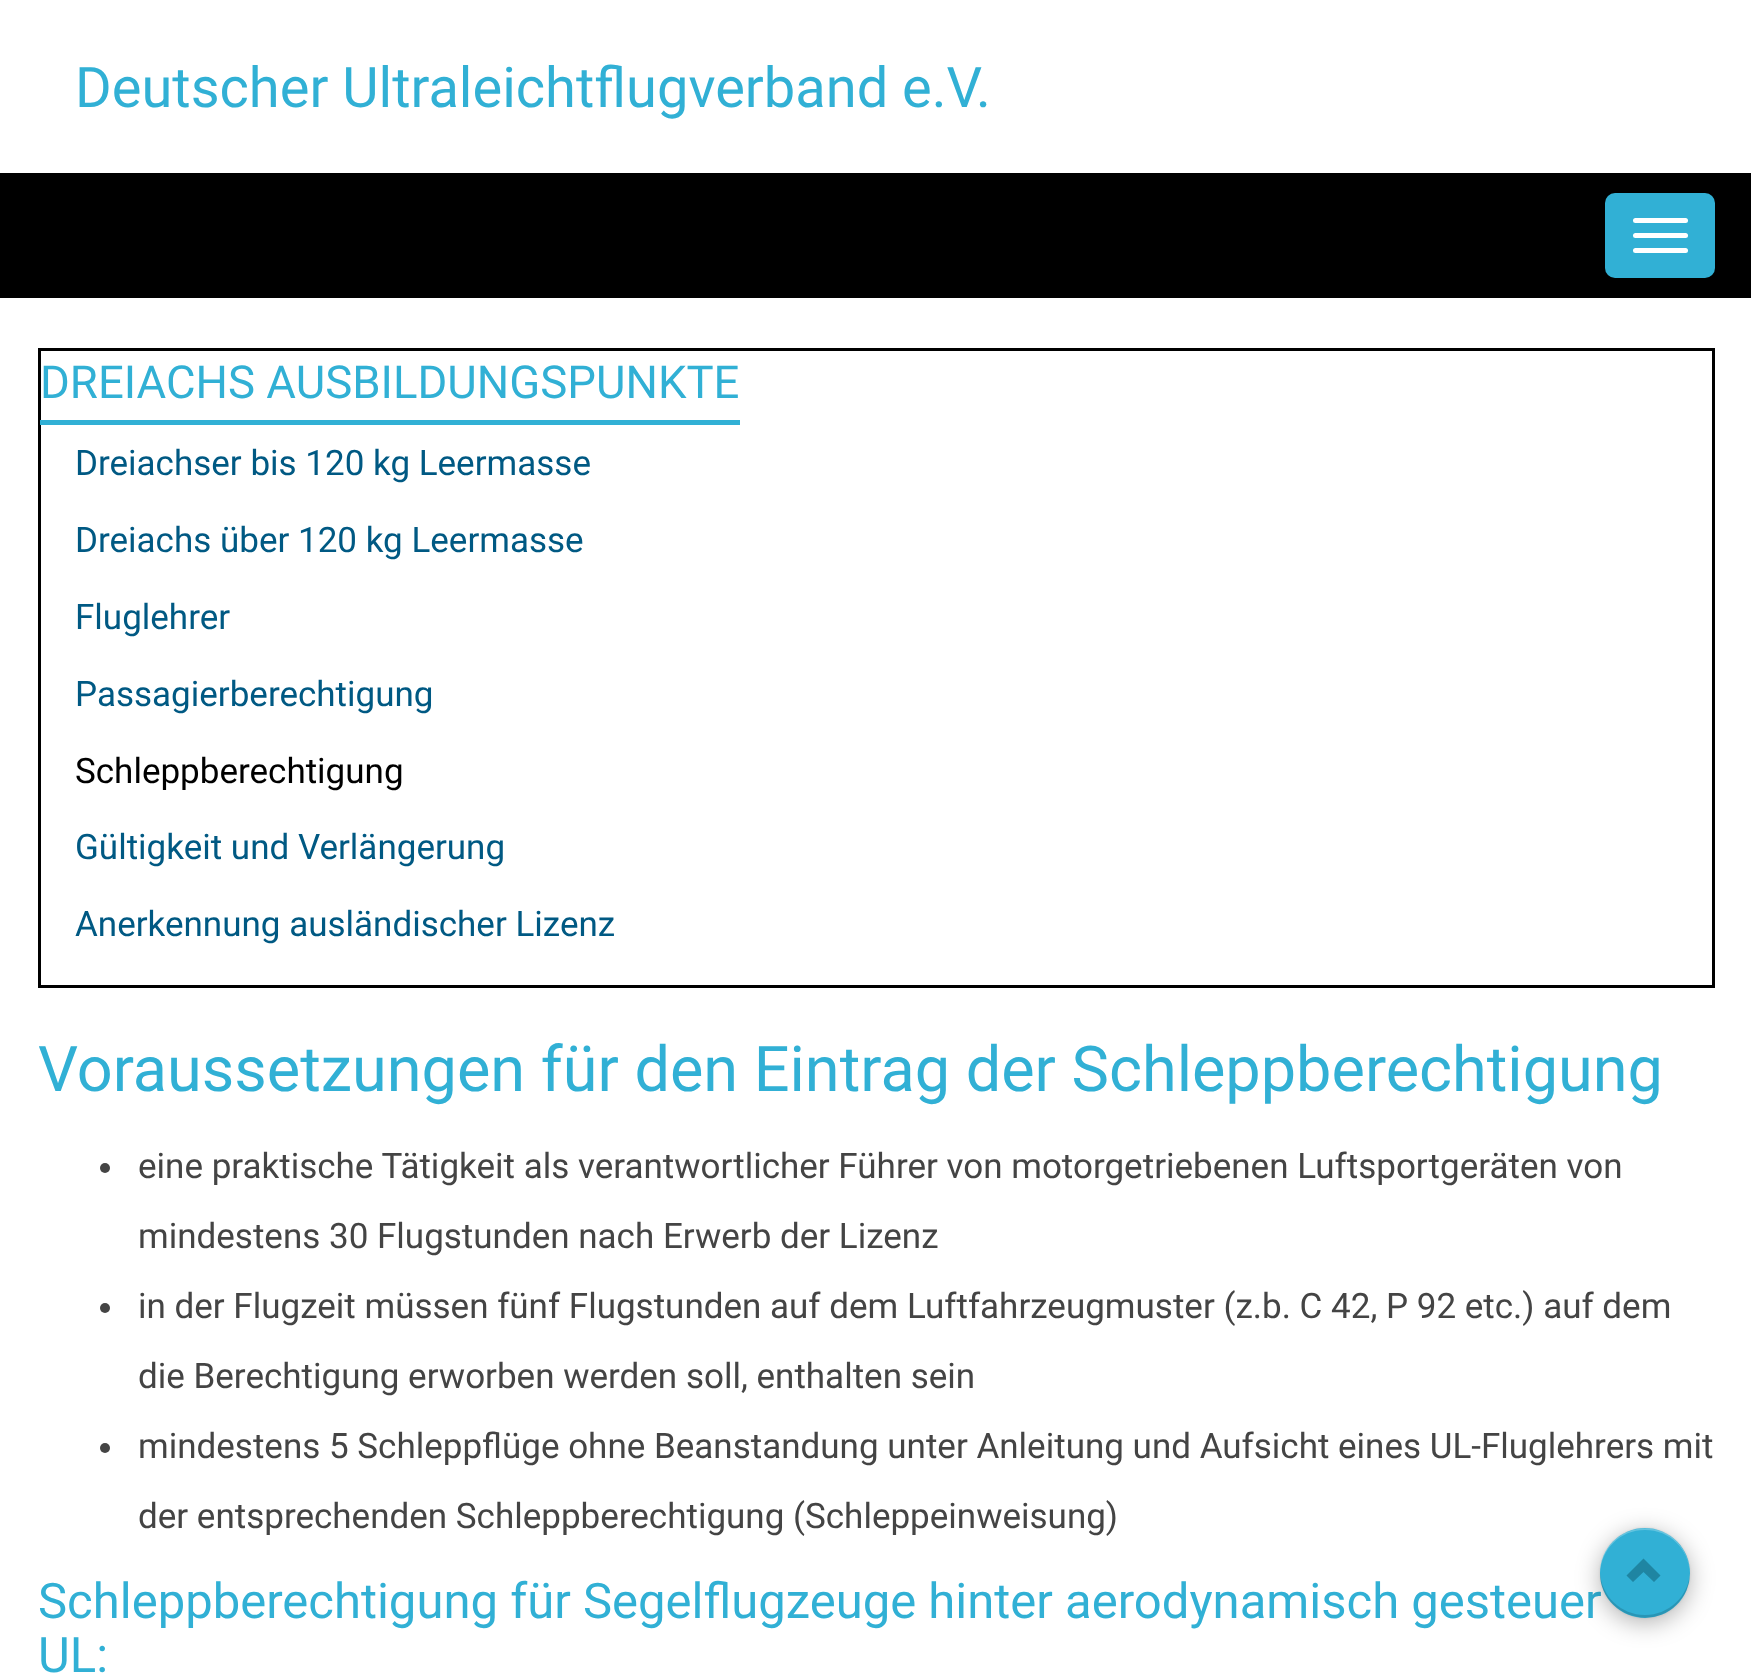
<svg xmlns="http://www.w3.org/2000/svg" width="1751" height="1680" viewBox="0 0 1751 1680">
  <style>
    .t1 { font: 56px Roboto; fill: #31b0d5; }
    .t2 { font: 45.5px Roboto; fill: #31b0d5; }
    .t3 { font: 35px Roboto; fill: #005983; }
    .t4 { font: 35px Roboto; fill: #000; }
    .t5 { font: 63px Roboto; fill: #31b0d5; }
    .t6 { font: 35px Roboto; fill: #444; }
    .t7 { font: 49px Roboto; fill: #31b0d5; }
  </style>
  <rect width="100%" height="100%" fill="#fff"/>
  <text x="75" y="107" class="t1">Deutscher Ultraleichtflugverband e.V.</text>
  <rect x="0" y="173" width="1751" height="125" fill="#000"/>
  <rect x="1605" y="193" width="110" height="85" rx="10" fill="#31b0d5"/>
  <rect x="1633" y="218" width="55" height="5" rx="2.5" fill="#fff"/>
  <rect x="1633" y="233" width="55" height="5" rx="2.5" fill="#fff"/>
  <rect x="1633" y="248" width="55" height="5" rx="2.5" fill="#fff"/>
  <rect x="39.5" y="349.5" width="1674" height="637" fill="none" stroke="#000" stroke-width="3"/>
  <rect x="40" y="420" width="700" height="5" fill="#31b0d5"/>
  <text x="40" y="398" class="t2">DREIACHS AUSBILDUNGSPUNKTE</text>
  <text x="75" y="475" class="t3">Dreiachser bis 120 kg Leermasse</text>
  <text x="75" y="552" class="t3">Dreiachs über 120 kg Leermasse</text>
  <text x="75" y="629" class="t3">Fluglehrer</text>
  <text x="75" y="706" class="t3">Passagierberechtigung</text>
  <text x="75" y="783" class="t4">Schleppberechtigung</text>
  <text x="75" y="859" class="t3">Gültigkeit und Verlängerung</text>
  <text x="75" y="936" class="t3">Anerkennung ausländischer Lizenz</text>
  <text x="38" y="1091" class="t5">Voraussetzungen für den Eintrag der Schleppberechtigung</text>
  <circle cx="105" cy="1168" r="5" fill="#444"/>
  <text x="138" y="1178" class="t6">eine praktische Tätigkeit als verantwortlicher Führer von motorgetriebenen Luftsportgeräten von</text>
  <text x="138" y="1248" class="t6">mindestens 30 Flugstunden nach Erwerb der Lizenz</text>
  <circle cx="105" cy="1308" r="5" fill="#444"/>
  <text x="138" y="1318" class="t6">in der Flugzeit müssen fünf Flugstunden auf dem Luftfahrzeugmuster (z.b. C 42, P 92 etc.) auf dem</text>
  <text x="138" y="1388" class="t6">die Berechtigung erworben werden soll, enthalten sein</text>
  <circle cx="105" cy="1448" r="5" fill="#444"/>
  <text x="138" y="1458" class="t6">mindestens 5 Schleppflüge ohne Beanstandung unter Anleitung und Aufsicht eines UL-Fluglehrers mit</text>
  <text x="138" y="1528" class="t6">der entsprechenden Schleppberechtigung (Schleppeinweisung)</text>
  <text x="38" y="1618" class="t7">Schleppberechtigung für Segelflugzeuge hinter aerodynamisch gesteuer</text>
  <text x="38" y="1672" class="t7">UL:</text>
  <rect x="1600" y="1528" width="90" height="90" rx="45" fill="#0000001a" filter="blur(1px)"/>
  <rect x="1600" y="1533" width="90" height="90" rx="45" fill="#0000004d" filter="blur(12.5px)"/>
  <circle cx="1645" cy="1573" r="45" fill="#31b0d5"/>
  <path d="M1600 1572C1599 1616 1657 1635 1682 1598C1688 1590 1690 1581 1690 1572C1689 1596 1669 1615 1645 1615C1621 1615 1601 1596 1600 1572Z" fill="#00000026"/>
  <path d="M1645 1530C1670 1530 1689 1549 1690 1574C1690 1565 1687 1556 1682 1548C1657 1511 1599 1530 1600 1574C1601 1549 1620 1530 1645 1530Z" fill="#ffffff40"/>
  <path d="M1654 1582L1660.5 1575.5L1643.5 1558.5L1626.5 1575.5L1633 1582L1643.5 1572Z" fill="#1f85a2"/>
</svg>
